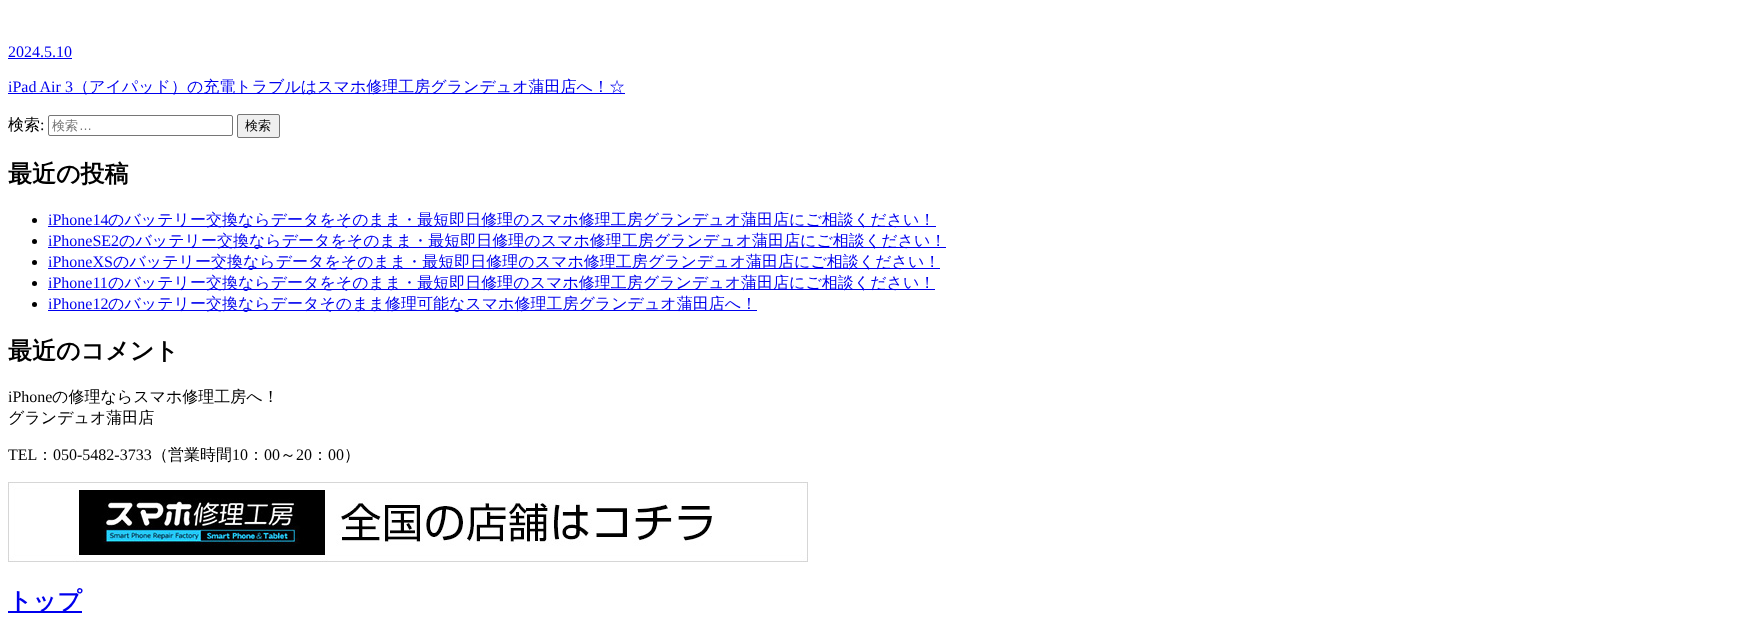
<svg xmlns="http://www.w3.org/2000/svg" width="1758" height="634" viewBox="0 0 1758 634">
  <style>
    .t1 { font: 16px Liberation Serif; fill: #00e; }
    .t2 { font: 500 16px WenQuanYi Zen Hei; fill: #00e; }
    .t3 { font: 500 16px WenQuanYi Zen Hei; fill: #000; }
    .t4 { font: 16px Liberation Serif; fill: #000; }
    .t5 { font: 500 13px WenQuanYi Zen Hei; fill: #757575; }
    .t6 { font: 13px Liberation Sans; fill: #757575; }
    .t7 { font: 500 13px WenQuanYi Zen Hei; fill: #000; }
    .t8 { font: bold 24px WenQuanYi Zen Hei; fill: #000; }
    .t9 { font: bold 24px WenQuanYi Zen Hei; fill: #00e; }
  </style>
  <rect width="100%" height="100%" fill="#fff"/>
  <text x="8" y="57" class="t1">2024.5.10</text>
  <rect x="8" y="58" width="64" height="1" fill="#00e"/>
  <text x="8" y="92" class="t1">iPad Air 3</text>
  <rect x="8" y="93" width="617" height="1" fill="#00e"/>
  <text x="73" y="92" class="t2">（アイパッド）の充電トラブルはスマホ修理工房グランデュオ蒲田店へ！☆</text>
  <text x="8" y="130" class="t3">検索</text>
  <text x="40" y="130" class="t4">:</text>
  <rect x="48.5" y="115.5" width="184" height="20" rx="1.5" fill="none" stroke="#767676"/>
  <text x="52" y="130" class="t5">検索</text>
  <text x="79" y="130" class="t6">…</text>
  <rect x="237.5" y="114.5" width="42" height="23" rx="1.5" fill="#efefef" stroke="#767676"/>
  <text x="245" y="130" class="t7">検索</text>
  <text x="8" y="182" class="t8">最近の投稿</text>
  <circle cx="34.5" cy="220.5" r="2.5" fill="#000"/>
  <text x="48" y="225" class="t1">iPhone14</text>
  <rect x="48" y="226" width="888" height="1" fill="#00e"/>
  <text x="108" y="225" class="t2">のバッテリー交換ならデータをそのまま・最短即日修理のスマホ修理工房グランデュオ蒲田店にご相談ください！</text>
  <circle cx="34.5" cy="241.5" r="2.5" fill="#000"/>
  <text x="48" y="246" class="t1">iPhoneSE2</text>
  <rect x="48" y="247" width="898" height="1" fill="#00e"/>
  <text x="119" y="246" class="t2">のバッテリー交換ならデータをそのまま・最短即日修理のスマホ修理工房グランデュオ蒲田店にご相談ください！</text>
  <circle cx="34.5" cy="262.5" r="2.5" fill="#000"/>
  <text x="48" y="267" class="t1">iPhoneXS</text>
  <rect x="48" y="268" width="892" height="1" fill="#00e"/>
  <text x="113" y="267" class="t2">のバッテリー交換ならデータをそのまま・最短即日修理のスマホ修理工房グランデュオ蒲田店にご相談ください！</text>
  <circle cx="34.5" cy="283.5" r="2.5" fill="#000"/>
  <text x="48" y="288" class="t1">iPhone11</text>
  <rect x="48" y="289" width="887" height="1" fill="#00e"/>
  <text x="108" y="288" class="t2">のバッテリー交換ならデータをそのまま・最短即日修理のスマホ修理工房グランデュオ蒲田店にご相談ください！</text>
  <circle cx="34.5" cy="304.5" r="2.5" fill="#000"/>
  <text x="48" y="309" class="t1">iPhone12</text>
  <rect x="48" y="310" width="709" height="1" fill="#00e"/>
  <text x="108" y="309" class="t2">のバッテリー交換ならデータそのまま修理可能なスマホ修理工房グランデュオ蒲田店へ！</text>
  <text x="8" y="359" class="t8">最近のコメント</text>
  <text x="8" y="402" class="t4">iPhone</text>
  <text x="52" y="402" class="t3">の修理ならスマホ修理工房へ！</text>
  <text x="8" y="423" class="t3">グランデュオ蒲田店</text>
  <text x="8" y="460" class="t4">TEL</text>
  <text x="37" y="460" class="t3">：</text>
  <text x="53" y="460" class="t4">050-5482-3733</text>
  <text x="152" y="460" class="t3">（営業時間</text>
  <text x="232" y="460" class="t4">10</text>
  <text x="248" y="460" class="t3">：</text>
  <text x="264" y="460" class="t4">00</text>
  <text x="280" y="460" class="t3">～</text>
  <text x="296" y="460" class="t4">20</text>
  <text x="312" y="460" class="t3">：</text>
  <text x="328" y="460" class="t4">00</text>
  <text x="344" y="460" class="t3">）</text>
  <image x="8" y="482" width="800" height="80" href="images/1.png"/>
  <rect x="8" y="611" width="74" height="2" fill="#00e"/>
  <text x="8" y="609" class="t9">トップ</text>
</svg>
